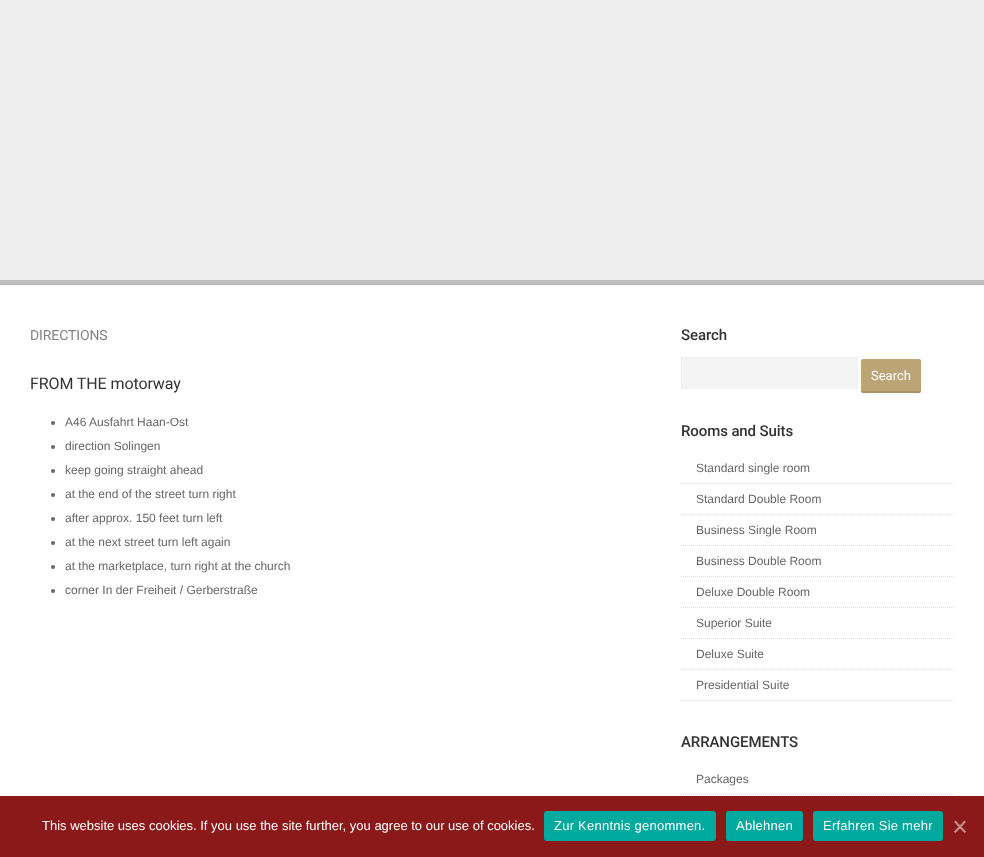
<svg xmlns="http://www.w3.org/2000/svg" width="984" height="857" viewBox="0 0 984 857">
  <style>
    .t1 { font: 14px Roboto; letter-spacing: -0.1px; fill: #828282; }
    .t2 { font: 16px Roboto; letter-spacing: -0.1px; fill: #333; }
    .t3 { font: 12px Liberation Sans; fill: #666; }
    .t4 { font: 500 15px Roboto; letter-spacing: -0.1px; fill: #333; }
    .t5 { font: 13px Roboto; fill: #fff; }
    .t6 { font: 13px Liberation Sans; fill: #fff; }
    .t7 { font: 13px Liberation Sans; letter-spacing: 0.25px; fill: #fff; }
  </style>
  <rect width="100%" height="100%" fill="#eee"/>
  <rect x="0" y="285" width="984" height="1" fill="#fff"/>
  <rect x="0" y="280" width="984" height="5" fill="#bebebe"/>
  <rect x="0" y="286" width="984" height="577" fill="#0000001a" filter="blur(2px)"/>
  <rect x="0" y="286" width="984" height="510" fill="#fff"/>
  <text x="30" y="340" class="t1">DIRECTIONS</text>
  <text x="30" y="389" class="t2">FROM THE motorway</text>
  <circle cx="53" cy="423" r="2" fill="#666"/>
  <text x="65" y="426" class="t3">A46 Ausfahrt Haan-Ost</text>
  <circle cx="53" cy="447" r="2" fill="#666"/>
  <text x="65" y="450" class="t3">direction Solingen</text>
  <circle cx="53" cy="471" r="2" fill="#666"/>
  <text x="65" y="474" class="t3">keep going straight ahead</text>
  <circle cx="53" cy="495" r="2" fill="#666"/>
  <text x="65" y="498" class="t3">at the end of the street turn right</text>
  <circle cx="53" cy="519" r="2" fill="#666"/>
  <text x="65" y="522" class="t3">after approx. 150 feet turn left</text>
  <circle cx="53" cy="543" r="2" fill="#666"/>
  <text x="65" y="546" class="t3">at the next street turn left again</text>
  <circle cx="53" cy="567" r="2" fill="#666"/>
  <text x="65" y="570" class="t3">at the marketplace, turn right at the church</text>
  <circle cx="53" cy="591" r="2" fill="#666"/>
  <text x="65" y="594" class="t3">corner In der Freiheit / Gerberstraße</text>
  <text x="681" y="340" class="t4">Search</text>
  <rect x="681.5" y="357.5" width="176" height="31" fill="#f4f4f4" stroke="#f0f0f0"/>
  <rect x="861" y="359" width="60" height="34" rx="2" fill="#bca474"/>
  <path d="M861 389C861 396 865 393 872 393H910C917 393 921 396 921 389C921 390 920 391 919 391H863C862 391 861 390 861 389Z" fill="#0000001a"/>
  <text x="871" y="380" class="t5">Search</text>
  <text x="681" y="436" class="t4">Rooms and Suits</text>
  <path d="M681 483.5H954" fill="none" stroke="#ddd" stroke-dasharray="1 1"/>
  <text x="696" y="472" class="t3">Standard single room</text>
  <path d="M681 514.5H954" fill="none" stroke="#ddd" stroke-dasharray="1 1"/>
  <text x="696" y="503" class="t3">Standard Double Room</text>
  <path d="M681 545.5H954" fill="none" stroke="#ddd" stroke-dasharray="1 1"/>
  <text x="696" y="534" class="t3">Business Single Room</text>
  <path d="M681 576.5H954" fill="none" stroke="#ddd" stroke-dasharray="1 1"/>
  <text x="696" y="565" class="t3">Business Double Room</text>
  <path d="M681 607.5H954" fill="none" stroke="#ddd" stroke-dasharray="1 1"/>
  <text x="696" y="596" class="t3">Deluxe Double Room</text>
  <path d="M681 638.5H954" fill="none" stroke="#ddd" stroke-dasharray="1 1"/>
  <text x="696" y="627" class="t3">Superior Suite</text>
  <path d="M681 669.5H954" fill="none" stroke="#ddd" stroke-dasharray="1 1"/>
  <text x="696" y="658" class="t3">Deluxe Suite</text>
  <path d="M681 700.5H954" fill="none" stroke="#ddd" stroke-dasharray="1 1"/>
  <text x="696" y="689" class="t3">Presidential Suite</text>
  <text x="681" y="747" class="t4">ARRANGEMENTS</text>
  <path d="M681 794.5H954" fill="none" stroke="#ddd" stroke-dasharray="1 1"/>
  <text x="696" y="783" class="t3">Packages</text>
  <rect x="0" y="796" width="984" height="61" fill="#8b1919"/>
  <text x="42" y="830" class="t6">This website uses cookies. If you use the site further, you agree to our use of cookies.</text>
  <rect x="544" y="811" width="172" height="30" rx="3" fill="#00a99d"/>
  <text x="554" y="830" class="t7">Zur Kenntnis genommen.</text>
  <rect x="726" y="811" width="77" height="30" rx="3" fill="#00a99d"/>
  <text x="736" y="830" class="t7">Ablehnen</text>
  <rect x="813" y="811" width="130" height="30" rx="3" fill="#00a99d"/>
  <text x="823" y="830" class="t7">Erfahren Sie mehr</text>
  <path d="M964.5 820.5L966 822L955.5 833L954 831.5Z" fill="#c58c8c"/>
  <path d="M954 822L955.5 820.5L966 831.5L964.5 833Z" fill="#c58c8c"/>
</svg>
